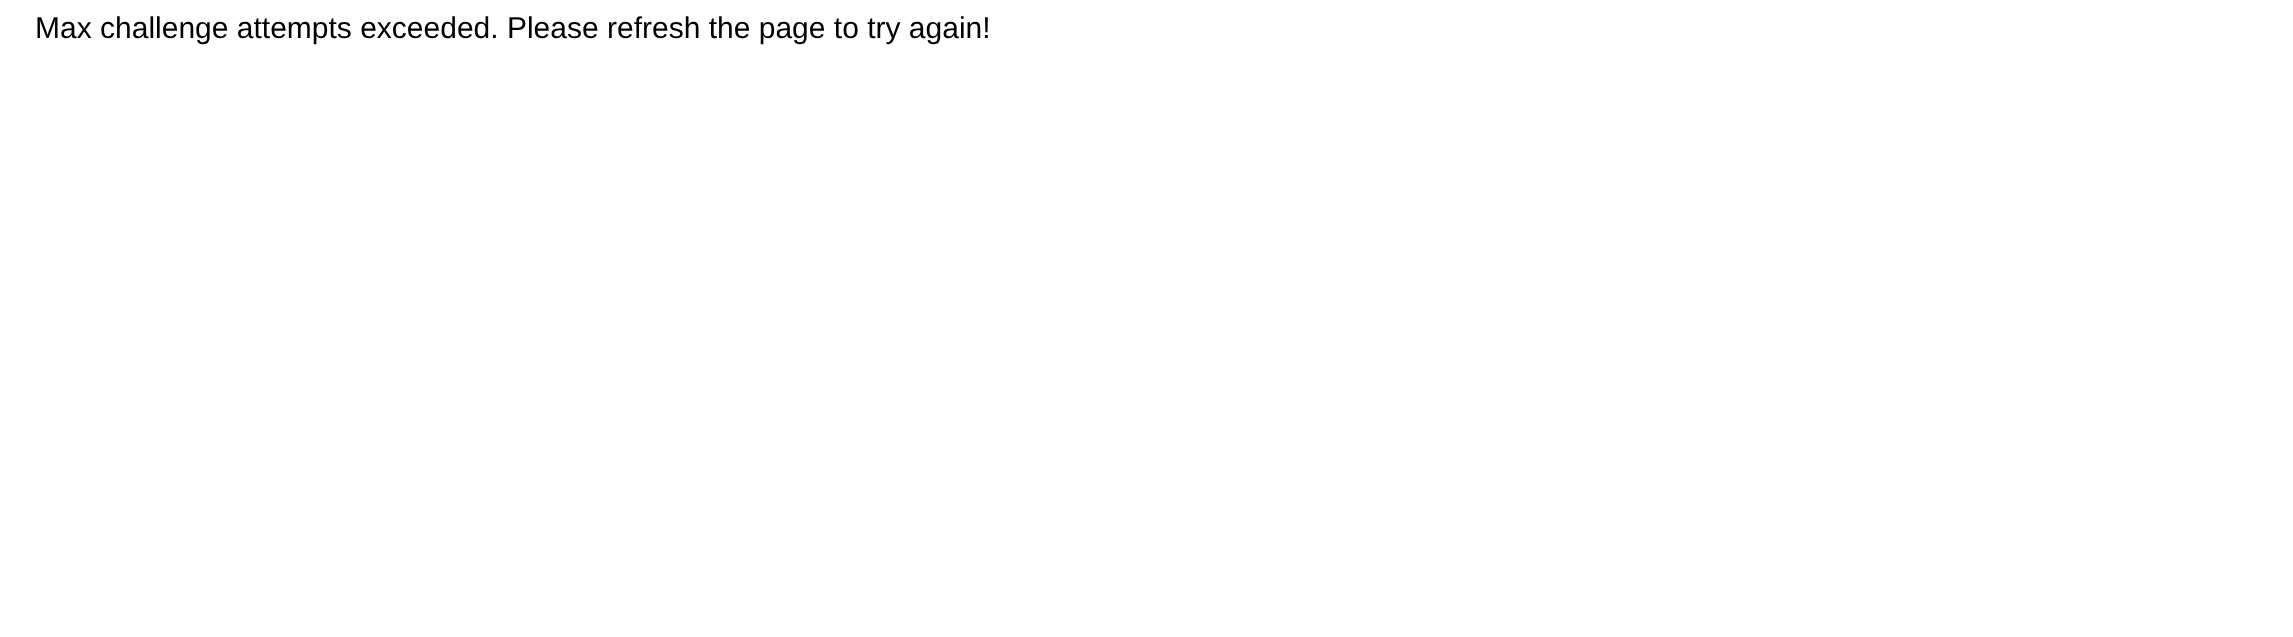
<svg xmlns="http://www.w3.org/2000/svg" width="2293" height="637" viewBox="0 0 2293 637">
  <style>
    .t1 { font: 30px Liberation Sans; fill: #000; }
  </style>
  <rect width="100%" height="100%" fill="#fff"/>
  <text x="35" y="38" class="t1">Max challenge attempts exceeded. Please refresh the page to try again!</text>
</svg>
